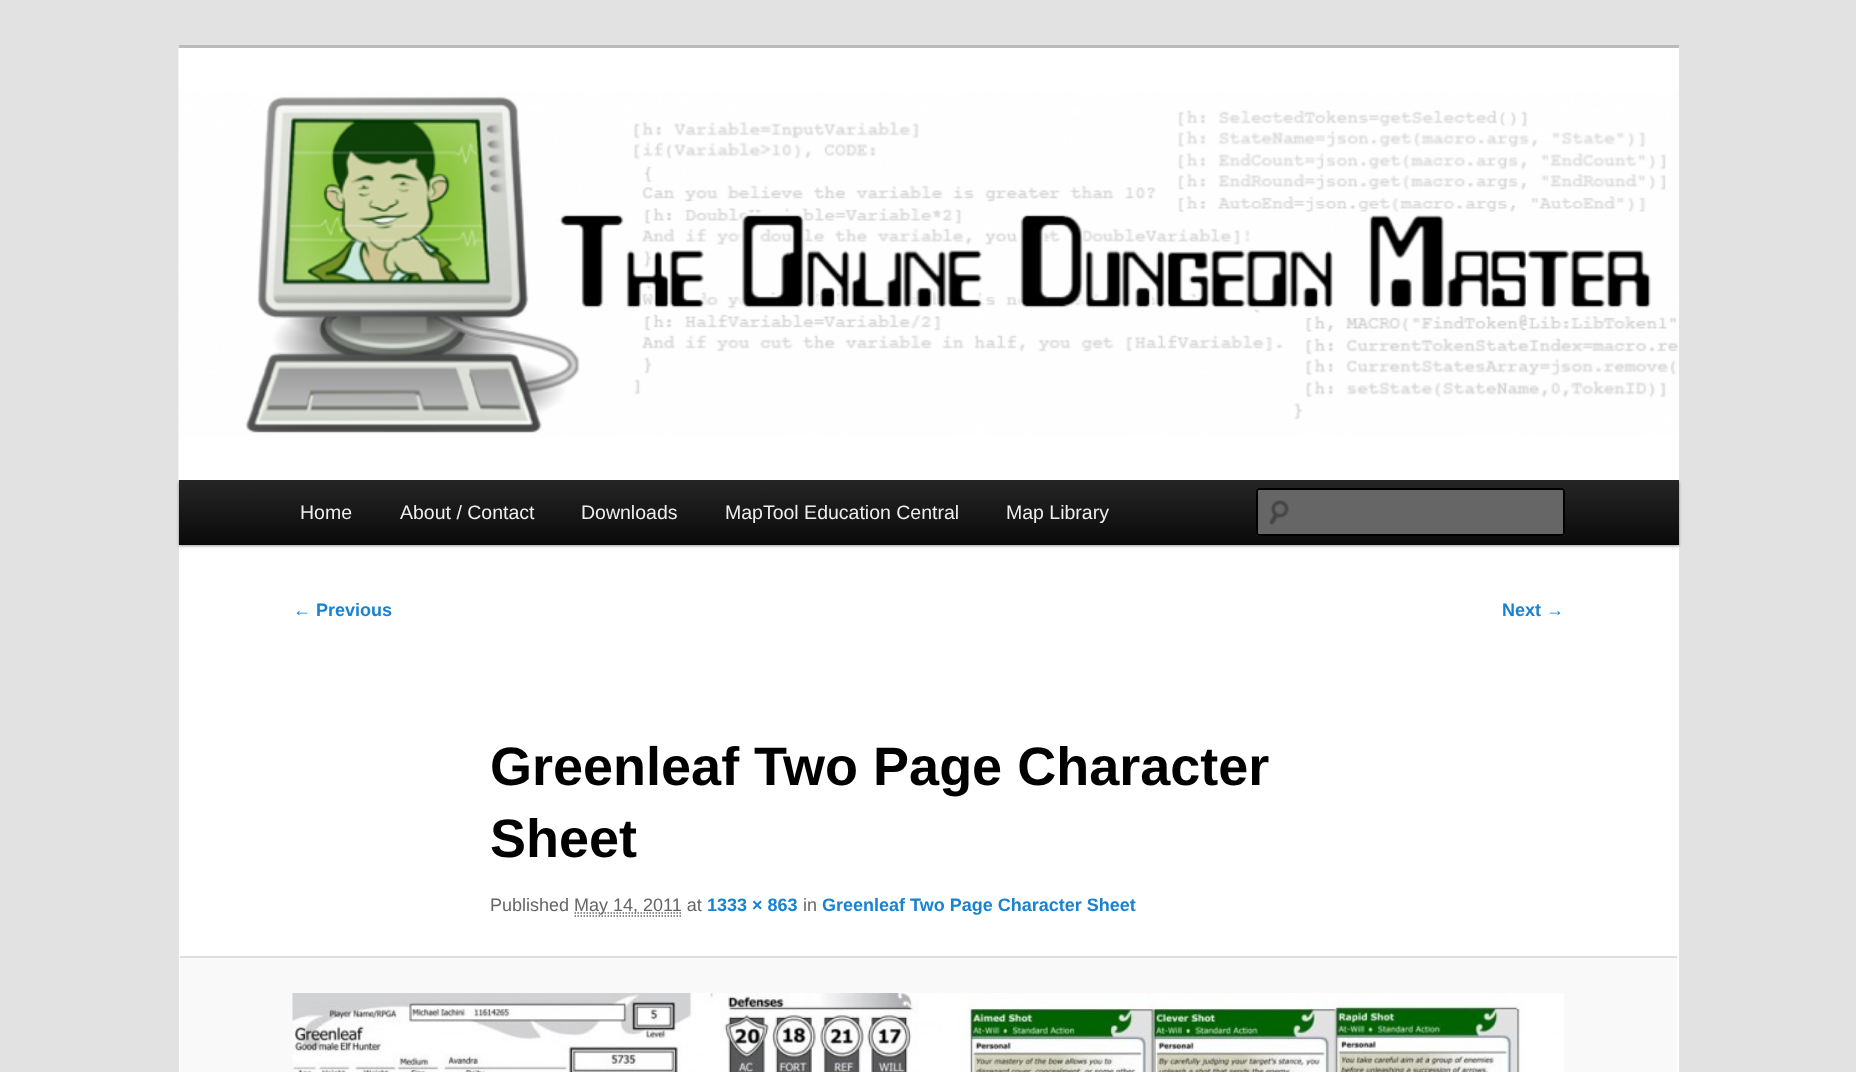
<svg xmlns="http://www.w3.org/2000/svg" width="1856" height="1072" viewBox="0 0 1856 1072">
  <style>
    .t1 { font: 19.5px Liberation Sans; fill: #eee; }
    .t2 { font: bold 18px Liberation Sans; fill: #1982d1; }
    .t3 { font: bold 54px Liberation Sans; fill: #000; }
    .t4 { font: 18px Liberation Sans; fill: #666; }
  </style>
  <defs>
    <linearGradient id="g1" gradientUnits="userSpaceOnUse" x1="929" y1="480" x2="929" y2="545"><stop offset="0" stop-color="#252525"/><stop offset="1" stop-color="#0a0a0a"/></linearGradient>
  </defs>
  <rect width="100%" height="100%" fill="#e2e2e2"/>
  <rect x="179" y="48" width="1500" height="1024" fill="#fff"/>
  <rect x="179" y="45" width="1500" height="3" fill="#bbb"/>
  <rect x="179" y="482" width="1500" height="64" fill="#00000066" filter="blur(1.5px)"/>
  <image x="178" y="48" width="1501" height="432" href="images/1.png"/>
  <rect x="179" y="480" width="1500" height="65" fill="url(#g1)"/>
  <text x="300" y="519" class="t1">Home</text>
  <text x="400" y="519" class="t1">About / Contact</text>
  <text x="581" y="519" class="t1">Downloads</text>
  <text x="725" y="519" class="t1">MapTool Education Central</text>
  <text x="1006" y="519" class="t1">Map Library</text>
  <rect x="1256" y="488" width="309" height="48" rx="3" fill="#666"/>
  <image x="1269" y="500" width="20" height="25" href="images/2.png"/>
  <path d="M1258 490H1562L1563 492C1563 491 1563 489 1562 489H1258L1257 490V492Z" fill="#5c5c5c"/>
  <rect x="1257" y="489" width="307" height="46" rx="2" fill="none" stroke="#000" stroke-width="2"/>
  <text x="293" y="616" class="t2">← Previous</text>
  <text x="1502" y="616" class="t2">Next →</text>
  <text x="490" y="785" class="t3">Greenleaf Two Page Character</text>
  <text x="490" y="857" class="t3">Sheet</text>
  <text x="490" y="911" class="t4">Published</text>
  <path d="M574.5 913H682" fill="none" stroke="#666" stroke-width="1.5" stroke-dasharray="1.5 1.5"/>
  <text x="574" y="911" class="t4">May 14, 2011 at</text>
  <path d="M574.5 916H682.5" fill="none" stroke="#666" stroke-width="1.5" stroke-dasharray="1.5 1.5"/>
  <text x="707" y="911" class="t2">1333 × 863</text>
  <text x="803" y="911" class="t4">in</text>
  <text x="822" y="911" class="t2">Greenleaf Two Page Character Sheet</text>
  <rect x="180" y="958" width="1497" height="114" fill="#f9f9f9"/>
  <rect x="180" y="956" width="1497" height="2" fill="#ddd"/>
  <image x="292" y="993" width="1272" height="79" href="images/3.png"/>
</svg>
